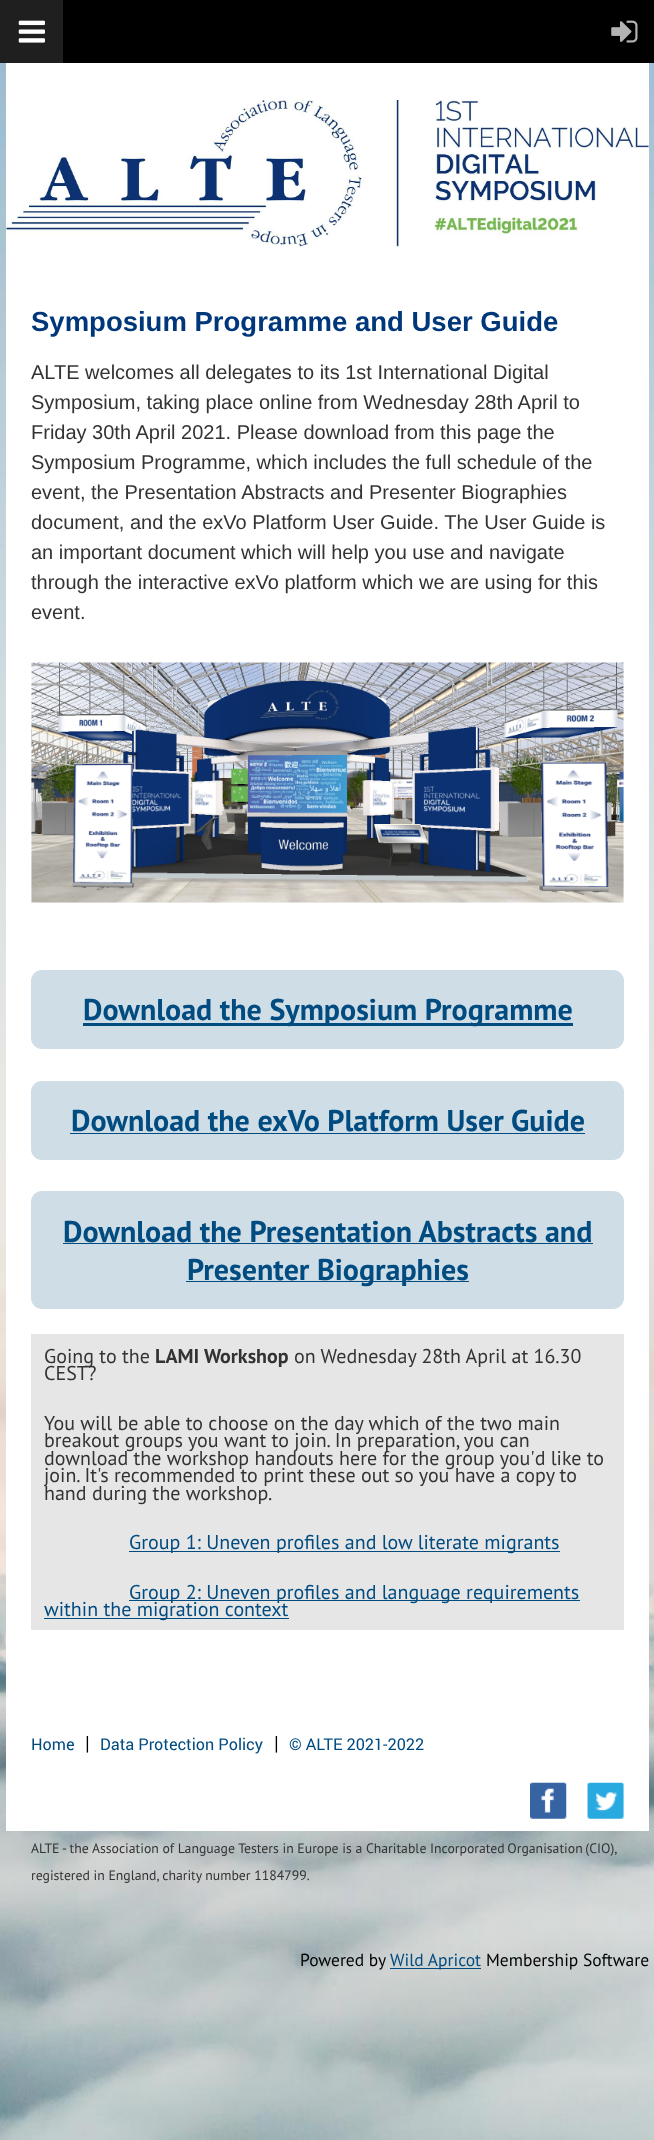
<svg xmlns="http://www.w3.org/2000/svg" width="654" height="2140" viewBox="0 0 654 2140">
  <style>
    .t1 { font: bold 27.5px Liberation Sans; fill: #00377b; }
    .t2 { font: 20px Liberation Sans; fill: #333; }
    .t3 { font: bold 30px PT Sans; fill: #004b80; }
    .t4 { font: 20px PT Sans; fill: #333; }
    .t5 { font: bold 20px PT Sans; fill: #333; }
    .t6 { font: 20px PT Sans; fill: #004b80; }
    .t7 { font: 16.25px Roboto; fill: #004b80; }
    .t8 { font: 20px PT Sans; fill: #000; }
    .t9 { font: 13.75px PT Sans; fill: #333; }
    .t10 { font: 17.5px PT Sans; fill: #000; }
    .t11 { font: 17.5px PT Sans; fill: #004b80; }
  </style>
  <rect width="100%" height="100%" fill="#fff"/>
  <image x="0" y="63" width="654" height="2077" href="images/1.png"/>
  <rect x="63" y="0" width="591" height="63" fill="#000"/>
  <rect x="0" y="0" width="63" height="63" fill="#1f1f1f"/>
  <image x="18" y="20" width="27" height="23" href="images/2.png"/>
  <image x="611" y="20" width="27" height="23" href="images/3.png"/>
  <rect x="6" y="63" width="643" height="1768" fill="#fff"/>
  <image x="6" y="100" width="643" height="147" href="images/4.png"/>
  <text x="31" y="331" class="t1">Symposium Programme and User Guide</text>
  <text x="31" y="379" class="t2">ALTE welcomes all delegates to its 1st International Digital</text>
  <text x="31" y="409" class="t2">Symposium, taking place online from Wednesday 28th April to</text>
  <text x="31" y="439" class="t2">Friday 30th April 2021. Please download from this page the</text>
  <text x="31" y="469" class="t2">Symposium Programme, which includes the full schedule of the</text>
  <text x="31" y="499" class="t2">event, the Presentation Abstracts and Presenter Biographies</text>
  <text x="31" y="529" class="t2">document, and the exVo Platform User Guide. The User Guide is</text>
  <text x="31" y="559" class="t2">an important document which will help you use and navigate</text>
  <text x="31" y="589" class="t2">through the interactive exVo platform which we are using for this</text>
  <text x="31" y="619" class="t2">event.</text>
  <image x="31" y="662" width="593" height="241" href="images/5.png"/>
  <rect x="31" y="970" width="593" height="79" rx="11" fill="#cfdde6"/>
  <rect x="83" y="1023" width="490" height="3" fill="#004b80"/>
  <text x="83" y="1020" class="t3">Download the Symposium Programme</text>
  <rect x="31" y="1081" width="593" height="79" rx="11" fill="#cfdde6"/>
  <text x="71" y="1131" class="t3">Download the exVo Platform User Guide</text>
  <rect x="70" y="1133" width="515" height="1" fill="#004b80"/>
  <rect x="31" y="1191" width="593" height="118" rx="11" fill="#cfdde6"/>
  <text x="63" y="1242" class="t3">Download the Presentation Abstracts and</text>
  <rect x="63" y="1243" width="530" height="1" fill="#004b80"/>
  <rect x="186" y="1281" width="283" height="1" fill="#004b80"/>
  <text x="187" y="1280" class="t3">Presenter Biographies</text>
  <rect x="31" y="1334" width="593" height="296" fill="#e6e6e6"/>
  <text x="44" y="1363" class="t4">Going to the</text>
  <text x="155" y="1363" class="t5">LAMI Workshop</text>
  <text x="294" y="1363" class="t4">on Wednesday 28th April at 16.30</text>
  <text x="44" y="1380" class="t4">CEST?</text>
  <text x="44" y="1430" class="t4">You will be able to choose on the day which of the two main</text>
  <text x="44" y="1447" class="t4">breakout groups you want to join. In preparation, you can</text>
  <text x="44" y="1465" class="t4">download the workshop handouts here for the group you'd like to</text>
  <text x="44" y="1482" class="t4">join. It's recommended to print these out so you have a copy to</text>
  <text x="44" y="1500" class="t4">hand during the workshop.</text>
  <rect x="129" y="1551" width="431" height="1" fill="#004b80"/>
  <text x="129" y="1549" class="t6">Group 1: Uneven profiles and low literate migrants</text>
  <rect x="129" y="1600" width="451" height="1" fill="#004b80"/>
  <text x="129" y="1599" class="t6">Group 2: Uneven profiles and language requirements</text>
  <rect x="44" y="1618" width="245" height="1" fill="#004b80"/>
  <text x="44" y="1616" class="t6">within the migration context</text>
  <text x="31" y="1750" class="t7">Home</text>
  <text x="85" y="1750" class="t8">|</text>
  <text x="100" y="1750" class="t7">Data Protection Policy</text>
  <text x="274" y="1750" class="t8">|</text>
  <text x="289" y="1750" class="t7">© ALTE 2021-2022</text>
  <image x="530" y="1782" width="37" height="37" href="images/6.png"/>
  <image x="587" y="1782" width="37" height="37" href="images/7.png"/>
  <text x="31" y="1853" class="t9">ALTE</text>
  <text x="62" y="1853" class="t9">- the Association of Language Testers in Europe is a Charitable</text>
  <text x="430" y="1853" word-spacing="-1" class="t9">Incorporated Organisation (CIO),</text>
  <text x="31" y="1880" class="t9">registered in England, charity number 1184799.</text>
  <text x="300" y="1966" class="t10">Powered by</text>
  <rect x="390" y="1968" width="91" height="1" fill="#004b80"/>
  <text x="390" y="1966" class="t11">Wild Apricot</text>
  <text x="486" y="1966" class="t10">Membership Software</text>
</svg>
